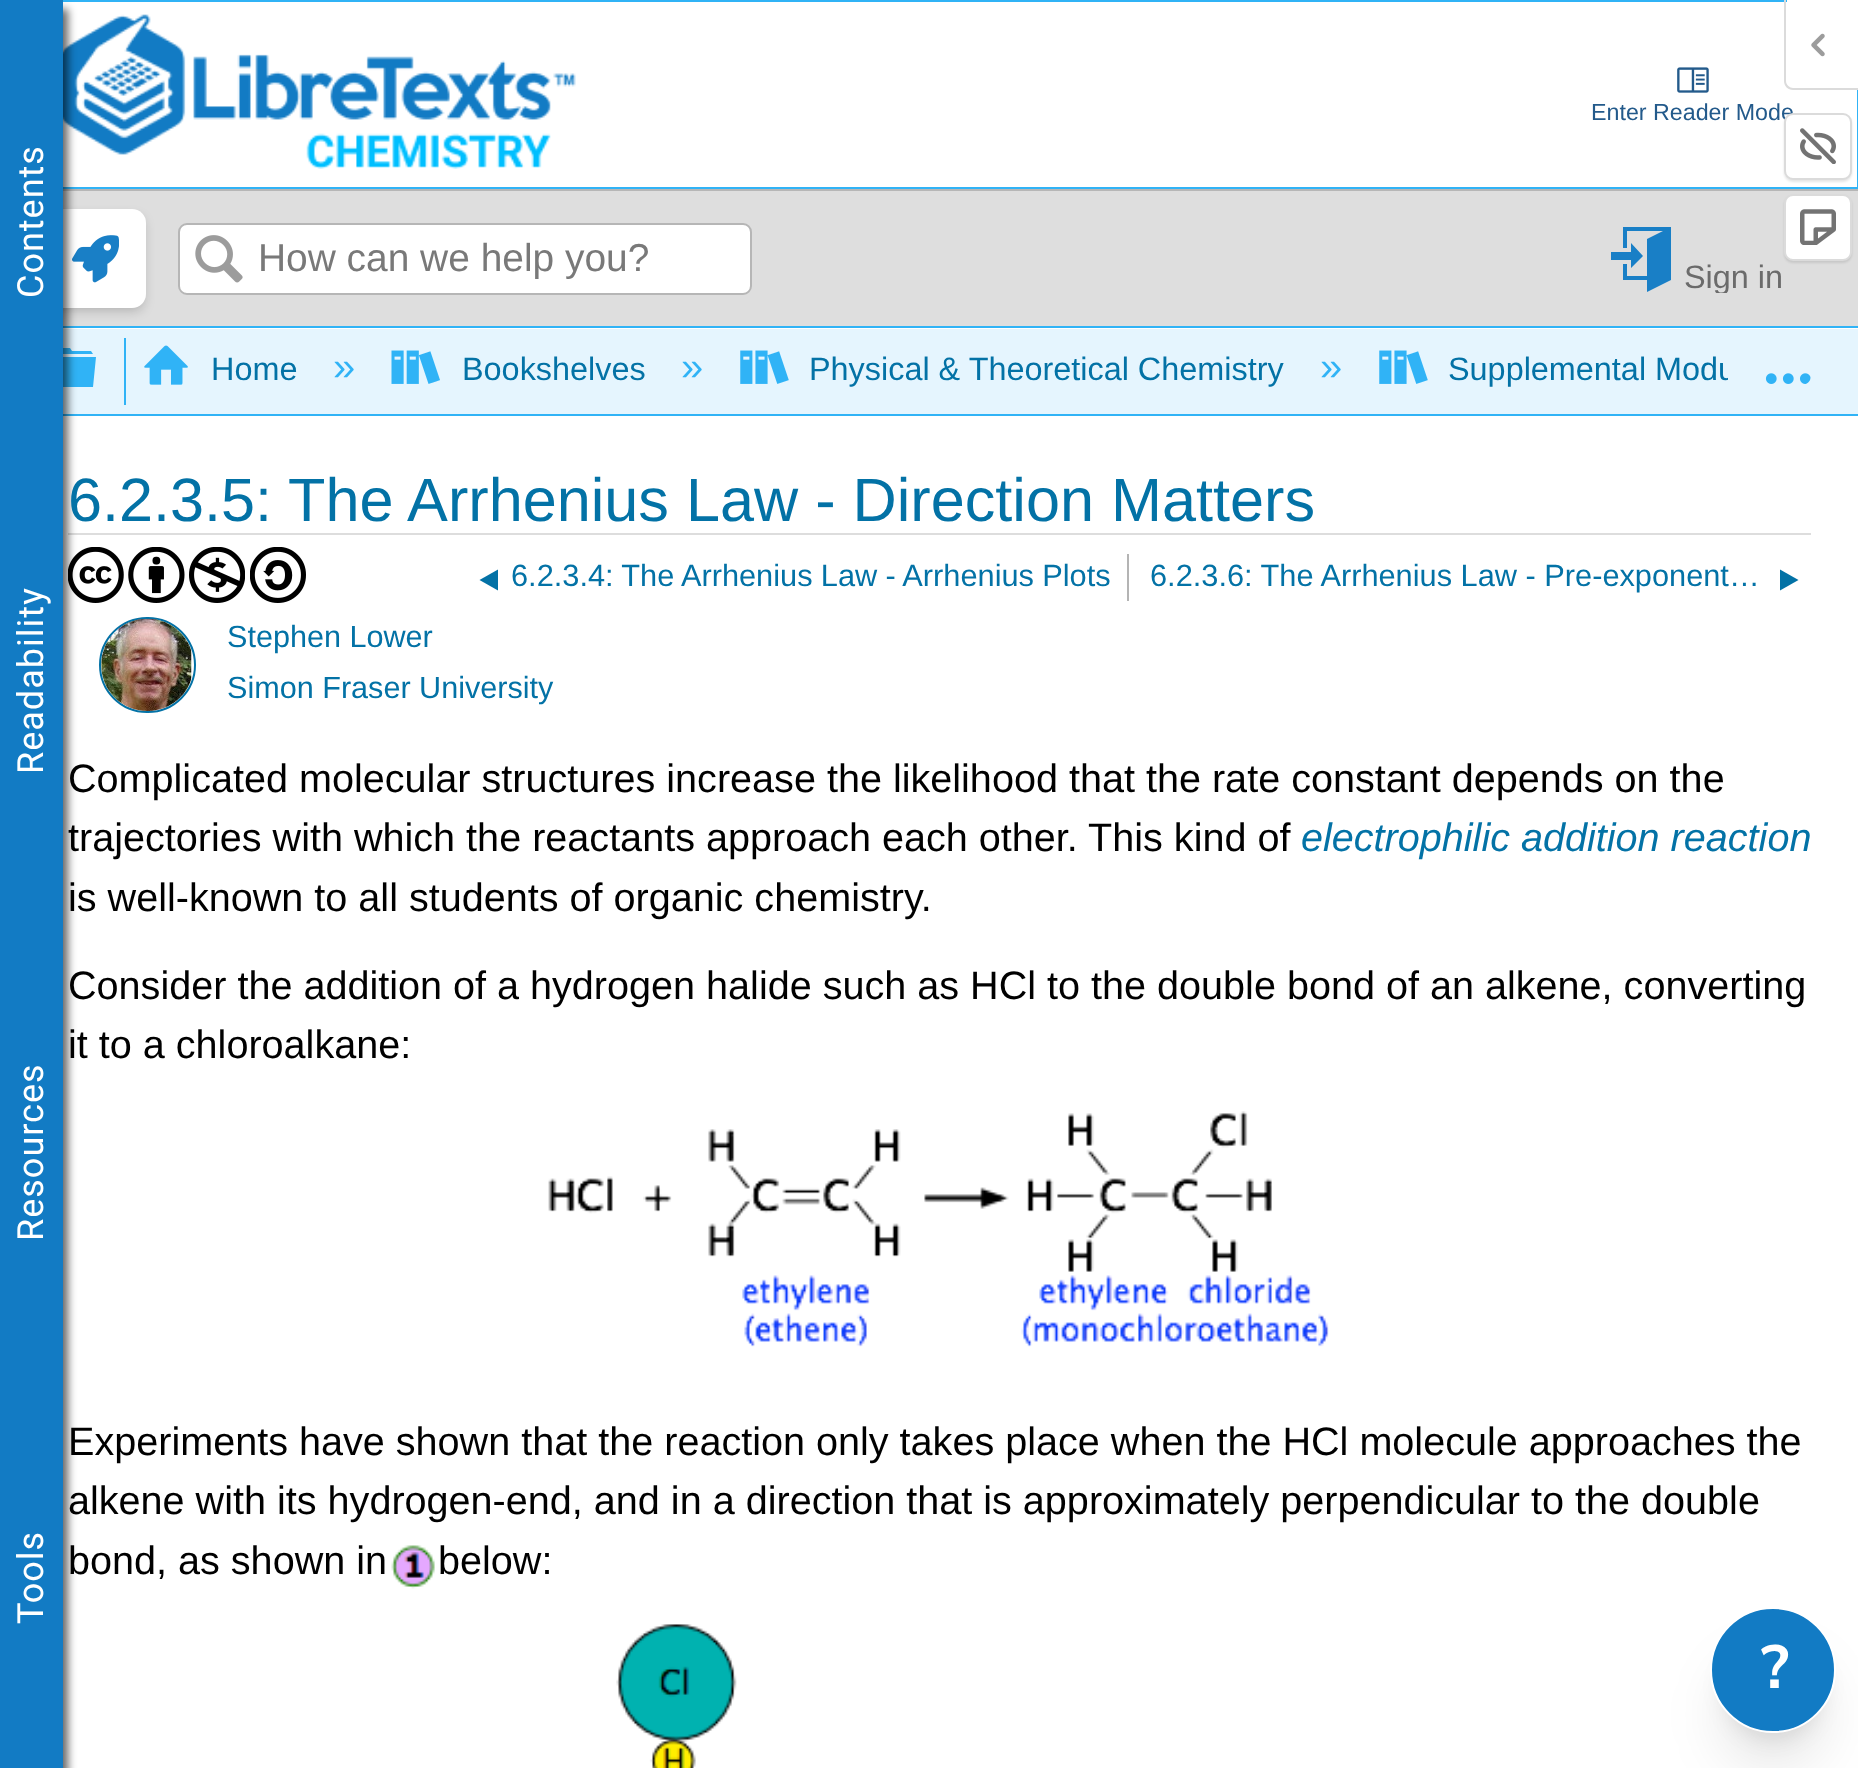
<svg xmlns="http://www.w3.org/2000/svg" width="1858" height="1768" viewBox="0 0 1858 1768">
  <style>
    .t1 { font: 36px Roboto; letter-spacing: 1px; fill: #fff; }
    .t2 { font: 23.25px Liberation Sans; fill: #235a8b; }
    .t3 { font: 38.9px Liberation Sans; fill: #797979; }
    .t4 { font: 32.4px Liberation Sans; fill: #6b6b6b; }
    .t5 { font: 32.4px Liberation Sans; fill: #0372a6; }
    .t6 { font: 40px Liberation Sans; fill: #30b3f6; }
    .t7 { font: 61.2px Liberation Sans; fill: #0372a6; }
    .t8 { font: 30.75px Liberation Sans; fill: #0372a6; }
    .t9 { font: 30.6px Liberation Sans; fill: #0372a6; }
    .t10 { font: 39.6px Liberation Sans; fill: #000; }
    .t11 { font: italic 39.6px Liberation Sans; fill: #0372a6; }
    .t12 { font: bold 61px Nunito Sans; fill: #fff; }
  </style>
  <defs>
    <clipPath id="clip1"><rect x="1607" y="225" width="189" height="68"/></clipPath>
    <clipPath id="clip2"><rect x="126" y="338" width="1602" height="67"/></clipPath>
  </defs>
  <rect width="100%" height="100%" fill="#fff"/>
  <rect x="1" y="1" width="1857" height="187" fill="none" stroke="#30b3f6" stroke-width="2"/>
  <image x="63" y="14" width="513" height="155" href="images/1.png"/>
  <rect x="63" y="191" width="1795" height="135" fill="#dedede"/>
  <rect x="63" y="189" width="1795" height="2" fill="#b6b6b6"/>
  <rect x="63" y="326" width="1795" height="2" fill="#30b3f6"/>
  <rect x="50" y="216" width="94" height="95" rx="11" fill="#08080833" filter="blur(5.5px)"/>
  <rect x="47" y="209" width="99" height="99" rx="14" fill="#fff"/>
  <image x="72" y="235" width="47" height="48" href="images/3.png"/>
  <rect x="63" y="329" width="1795" height="85" fill="#e5f5fe"/>
  <rect x="63" y="414" width="1795" height="2" fill="#30b3f6"/>
  <path d="M47 357H96L93 387H50ZM91 351L93 354H50L53 348H70L72 351Z" fill="#30b3f6"/>
  <rect x="68" y="533" width="1743" height="2" fill="#ddd"/>
  <image x="68" y="547" width="56" height="56" href="images/9.png"/>
  <rect x="5" y="9" width="63" height="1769" fill="#00000099" filter="blur(4.5px)"/>
  <rect x="0" y="0" width="63" height="1768" fill="#127bc4"/>
  <text x="43" y="298" transform="rotate(-90 43 298)" class="t1">Contents</text>
  <text x="43" y="774" transform="rotate(-90 43 774)" class="t1">Readability</text>
  <text x="43" y="1241" transform="rotate(-90 43 1241)" class="t1">Resources</text>
  <text x="43" y="1624" transform="rotate(-90 43 1624)" class="t1">Tools</text>
  <image x="1677" y="67" width="32" height="26" href="images/2.png"/>
  <text x="1591" y="120" class="t2">Enter Reader Mode</text>
  <rect x="179" y="224" width="572" height="70" rx="8" fill="#fff" stroke="#b6b6b6" stroke-width="2"/>
  <image x="195" y="235" width="48" height="48" href="images/4.png"/>
  <text x="258" y="271" class="t3">How can we help you?</text>
  <path d="M1631 260H1611V252H1631V243L1643 256L1631 268ZM1671 227V280L1647 292V280H1623V264H1627V276H1647V239L1663 231H1627V248H1623V227Z" fill="#197fc6"/>
  <g clip-path="url(#clip1)">
    <text x="1684" y="288" class="t4">Sign in</text>
  </g>
  <rect x="124" y="338" width="2" height="67" fill="#30b3f6"/>
  <image x="144" y="345" width="44" height="40" href="images/5.png"/>
  <text x="211" y="380" class="t5">Home</text>
  <text x="333" y="380" class="t6">»</text>
  <image x="391" y="350" width="49" height="34" href="images/6.png"/>
  <text x="462" y="380" class="t5">Bookshelves</text>
  <text x="681" y="380" class="t6">»</text>
  <image x="740" y="350" width="49" height="34" href="images/7.png"/>
  <text x="809" y="380" class="t5">Physical &amp; Theoretical Chemistry</text>
  <text x="1320" y="380" class="t6">»</text>
  <image x="1379" y="350" width="49" height="34" href="images/7.png"/>
  <g clip-path="url(#clip2)">
    <text x="1448" y="380" class="t5">Supplemental Modu</text>
  </g>
  <image x="1765" y="373" width="46" height="11" href="images/8.png"/>
  <text x="68" y="521" class="t7">6.2.3.5: The Arrhenius Law - Direction Matters</text>
  <image x="128" y="547" width="57" height="56" href="images/10.png"/>
  <image x="189" y="547" width="56" height="56" href="images/11.png"/>
  <image x="250" y="547" width="56" height="56" href="images/12.png"/>
  <rect x="1127" y="554" width="2" height="47" fill="#b4b4b4"/>
  <path d="M498 569.5V590.5L479.5 580Z" fill="#0372a6"/>
  <text x="511" y="586" word-spacing="-0.25" class="t8">6.2.3.4: The Arrhenius Law - Arrhenius Plots</text>
  <text x="1150" y="586" class="t8">6.2.3.6: The Arrhenius Law - Pre-exponent…</text>
  <path d="M1780 569.5V590.5L1798.5 580Z" fill="#0372a6"/>
  <rect x="100" y="618" width="95" height="94" rx="47" fill="none" stroke="#0372a6" stroke-width="2"/>
  <image x="101" y="618" width="91" height="93" href="images/13.png"/>
  <text x="227" y="647" class="t9">Stephen Lower</text>
  <text x="227" y="698" class="t9">Simon Fraser University</text>
  <text x="68" y="792" class="t10">Complicated molecular structures increase the likelihood that the rate constant depends on the</text>
  <text x="68" y="851" class="t10">trajectories with which the reactants approach each other. This kind of</text>
  <text x="1301" y="851" class="t11">electrophilic addition reaction</text>
  <text x="68" y="911" class="t10">is well-known to all students of organic chemistry.</text>
  <text x="68" y="999" class="t10">Consider the addition of a hydrogen halide such as HCl to the double bond of an alkene, converting</text>
  <text x="68" y="1058" class="t10">it to a chloroalkane:</text>
  <image x="548" y="1111" width="781" height="236" href="images/14.png"/>
  <text x="68" y="1455" class="t10">Experiments have shown that the reaction only takes place when the HCl molecule approaches the</text>
  <text x="68" y="1514" class="t10">alkene with its hydrogen-end, and in a direction that is approximately perpendicular to the double</text>
  <text x="68" y="1574" class="t10">bond, as shown in</text>
  <image x="391" y="1545" width="44" height="44" href="images/15.png"/>
  <text x="438" y="1574" class="t10">below:</text>
  <image x="616" y="1624" width="121" height="144" href="images/16.png"/>
  <rect x="1724" y="1638" width="99" height="99" rx="49.5" fill="#0000001a" filter="blur(11px)"/>
  <rect x="1721" y="1663" width="104" height="103" rx="51.5" fill="#0000001a" filter="blur(28px)"/>
  <circle cx="1773" cy="1670" r="62" fill="#127bc4" stroke="#fff" stroke-width="2"/>
  <text x="1761" y="1688" class="t12">?</text>
  <path d="M1787 0H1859V88H1794C1790 88 1787 85 1787 81Z" fill="#fff"/>
  <path d="M1784 0H1858V90H1793C1788 90 1784 86 1784 81ZM1786 0H1858V88H1793C1790 88 1786 85 1786 81Z" fill="#dbdbdb" fill-rule="evenodd"/>
  <image x="1811" y="33" width="14" height="24" href="images/17.png"/>
  <rect x="1784" y="115" width="68" height="67" rx="9" fill="#0000001a" filter="blur(1px)"/>
  <rect x="1785" y="114" width="66" height="65" rx="8" fill="#fff" stroke="#dbdbdb" stroke-width="2"/>
  <image x="1800" y="128" width="36" height="36" href="images/18.png"/>
  <rect x="1784" y="196" width="68" height="67" rx="9" fill="#0000001a" filter="blur(1px)"/>
  <rect x="1785" y="195" width="66" height="65" rx="8" fill="#fff" stroke="#dbdbdb" stroke-width="2"/>
  <image x="1800" y="209" width="36" height="36" href="images/19.png"/>
</svg>
